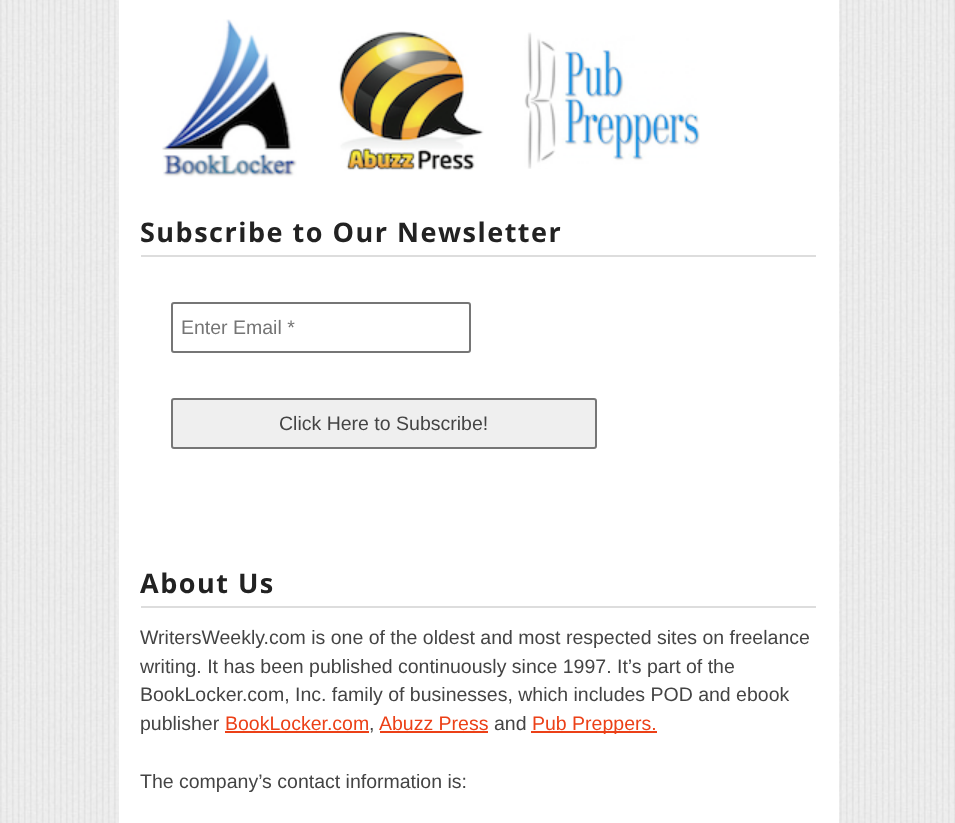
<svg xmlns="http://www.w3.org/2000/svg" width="955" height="823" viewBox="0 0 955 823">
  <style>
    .t1 { font: bold 27px Open Sans; letter-spacing: 1.5px; fill: #222; }
    .t2 { font: 19.5px Liberation Sans; fill: #757575; }
    .t3 { font: 19.5px Liberation Sans; fill: #444; }
    .t4 { font: 19.5px Liberation Sans; fill: #ec4017; }
  </style>
  <rect width="100%" height="100%" fill="#fff"/>
  <image x="0" y="0" width="955" height="823" href="images/1.png"/>
  <rect x="119" y="0" width="720" height="823" fill="#fff"/>
  <image x="162" y="19" width="135" height="158" href="images/2.png"/>
  <image x="338" y="31" width="146" height="140" href="images/3.png"/>
  <image x="524" y="32" width="176" height="137" href="images/4.png"/>
  <rect x="141" y="255" width="675" height="2" fill="#ddd"/>
  <text x="140" y="242" class="t1">Subscribe to Our Newsletter</text>
  <rect x="172" y="303" width="298" height="49" rx="2" fill="none" stroke="#767676" stroke-width="2"/>
  <text x="181" y="334" class="t2">Enter Email *</text>
  <rect x="172" y="399" width="424" height="49" rx="2" fill="#efefef" stroke="#767676" stroke-width="2"/>
  <text x="279" y="430" class="t3">Click Here to Subscribe!</text>
  <rect x="141" y="606" width="675" height="2" fill="#ddd"/>
  <text x="140" y="593" class="t1">About Us</text>
  <text x="140" y="644" class="t3">WritersWeekly.com is one of the oldest and most respected sites on freelance</text>
  <text x="140" y="673" class="t3">writing. It has been published continuously since 1997. It’s part of the</text>
  <text x="140" y="701" class="t3">BookLocker.com, Inc. family of businesses, which includes POD and ebook</text>
  <text x="140" y="730" class="t3">publisher</text>
  <text x="225" y="730" class="t4">BookLocker.com</text>
  <rect x="225" y="731" width="144" height="2" fill="#ec4017"/>
  <text x="369" y="730" class="t3">,</text>
  <text x="379" y="730" class="t4">Abuzz Press</text>
  <rect x="380" y="731" width="108" height="2" fill="#ec4017"/>
  <text x="494" y="730" class="t3">and</text>
  <rect x="531" y="731" width="126" height="2" fill="#ec4017"/>
  <text x="532" y="730" class="t4">Pub Preppers.</text>
  <text x="140" y="788" class="t3">The company’s contact information is:</text>
</svg>
